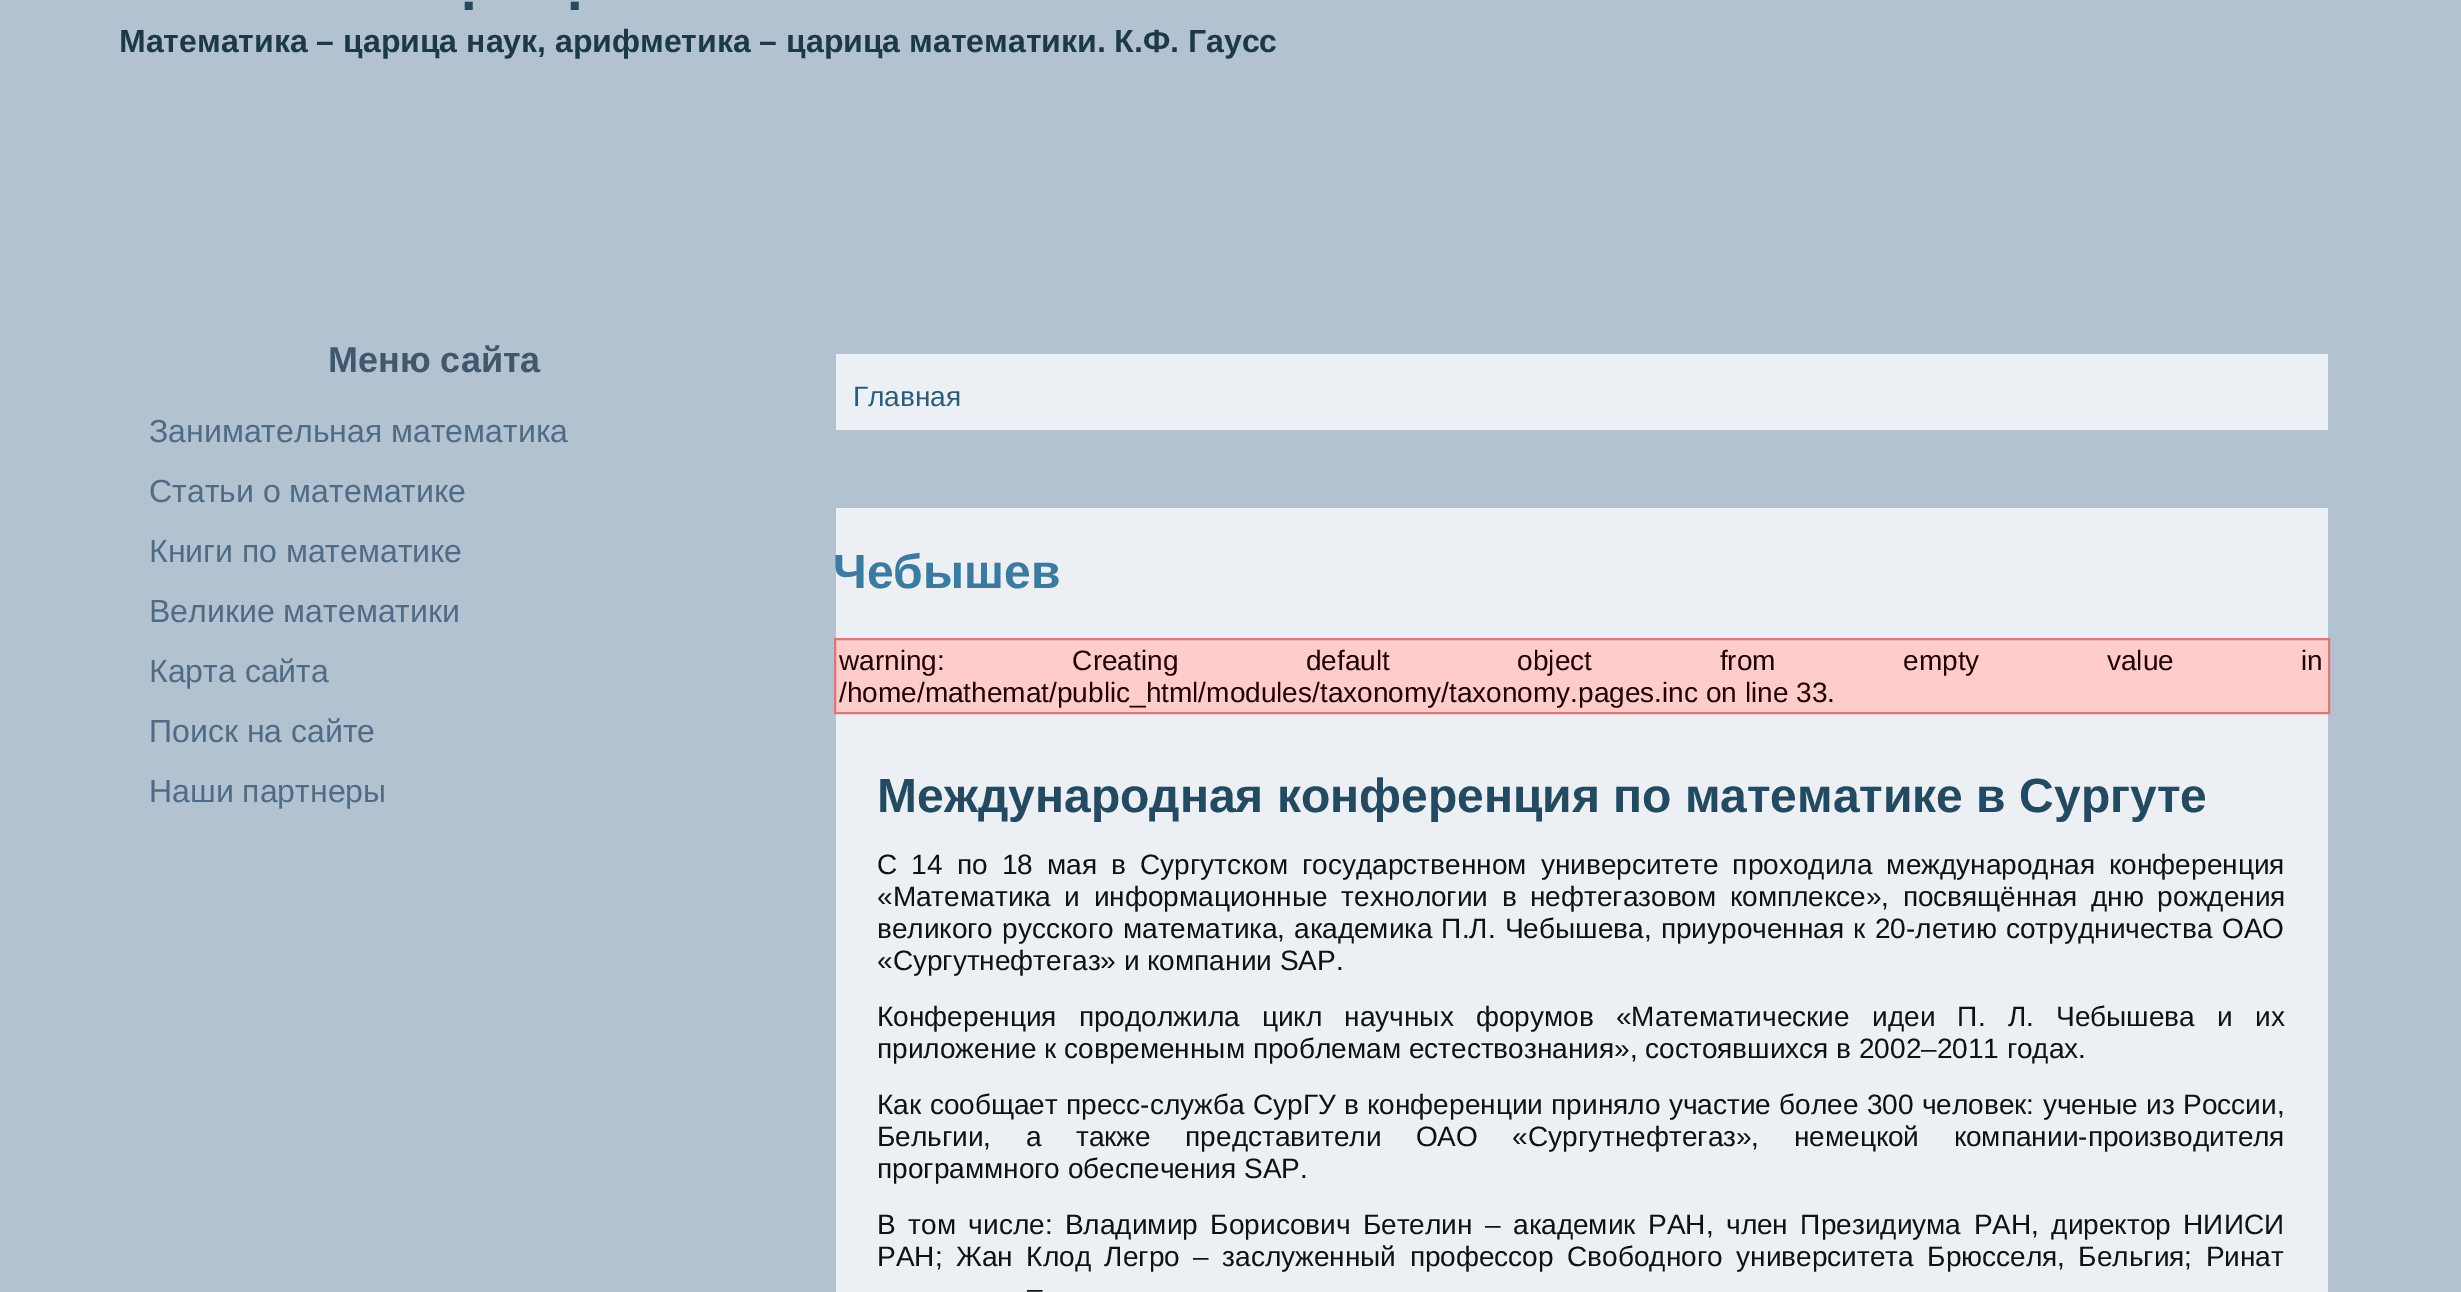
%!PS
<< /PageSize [2461 1292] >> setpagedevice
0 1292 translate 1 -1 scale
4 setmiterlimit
0.698 0.761 0.82 setrgbcolor
0 0 2461 1292 rectfill
/LiberationSans-Bold [56 0 0 -56 0 0] selectfont
0.141 0.29 0.38 setrgbcolor
461 10 moveto (.) show
567 10 moveto (.) show
/LiberationSans-Bold [32 0 0 -32 0 0] selectfont
0.11 0.224 0.29 setrgbcolor
119 52 moveto (Математика – царица наук, арифметика – царица математики. К.Ф. Гаусс) show
/LiberationSans-Bold [36 0 0 -36 0 0] selectfont
0.255 0.341 0.424 setrgbcolor
328 372 moveto (Меню сайта) show
/LiberationSans-Regular [32 0 0 -32 0 0] selectfont
0.314 0.42 0.525 setrgbcolor
149 442 moveto (Занимательная математика) show
149 502 moveto (Статьи о математике) show
149 562 moveto (Книги по математике) show
149 622 moveto (Великие математики) show
149 682 moveto (Карта сайта) show
149 742 moveto (Поиск на сайте) show
149 802 moveto (Наши партнеры) show
0.925 0.941 0.957 setrgbcolor
836 354 1492 76 rectfill
/LiberationSans-Regular [28 0 0 -28 0 0] selectfont
0.173 0.361 0.467 setrgbcolor
853 406 moveto (Главная) show
0.925 0.941 0.957 setrgbcolor
836 508 1492 784 rectfill
/LiberationSans-Bold [48 0 0 -48 0 0] selectfont
0.231 0.482 0.627 setrgbcolor
833 588 moveto (Чебышев) show
1 0.8 0.8 setrgbcolor
newpath 835 639 moveto 2329 639 lineto 2329 713 lineto 835 713 lineto closepath gsave fill grestore
0.867 0.467 0.467 setrgbcolor
2 setlinewidth
stroke
/LiberationSans-Regular [28 0 0 -28 0 0] selectfont
0.133 0 0 setrgbcolor
839 670 moveto 119.75 0 32 (warning: Creating default object from empty value in) widthshow
839 702 moveto (/home/mathemat/public_html/modules/taxonomy/taxonomy.pages.inc on line 33.) show
/LiberationSans-Bold [48 0 0 -48 0 0] selectfont
0.141 0.29 0.38 setrgbcolor
877 812 moveto (Международная конференция по математике в Сургуте) show
/LiberationSans-Regular [28 0 0 -28 0 0] selectfont
0.051 0.071 0.086 setrgbcolor
877 874 moveto 6.4 0 32 (C 14 по 18 мая в Сургутском государственном университете проходила международная конференция) widthshow
877 906 moveto 5.75 0 32 («Математика и информационные технологии в нефтегазовом комплексе», посвящённая дню рождения) widthshow
877 938 moveto 1.5 0 32 (великого русского математика, академика П.Л. Чебышева, приуроченная к 20-летию сотрудничества ОАО) widthshow
877 970 moveto («Сургутнефтегаз» и компании SAP.) show
877 1026 moveto 14.5 0 32 (Конференция продолжила цикл научных форумов «Математические идеи П. Л. Чебышева и их) widthshow
877 1058 moveto (приложение к современным проблемам естествознания», состоявшихся в 2002–2011 годах.) show
877 1114 moveto 0.6 0 32 (Как сообщает пресс-служба СурГУ в конференции приняло участие более 300 человек: ученые из России,) widthshow
877 1146 moveto 26.75 0 32 (Бельгии, а также представители ОАО «Сургутнефтегаз», немецкой компании-производителя) widthshow
877 1178 moveto (программного обеспечения SAP.) show
877 1234 moveto 4.75 0 32 (В том числе: Владимир Борисович Бетелин – академик РАН, член Президиума РАН, директор НИИСИ) widthshow
877 1266 moveto 5.75 0 32 (РАН; Жан Клод Легро – заслуженный профессор Свободного университета Брюсселя, Бельгия; Ринат) widthshow
1027 1298 moveto 15 0 32 (–) widthshow
showpage
